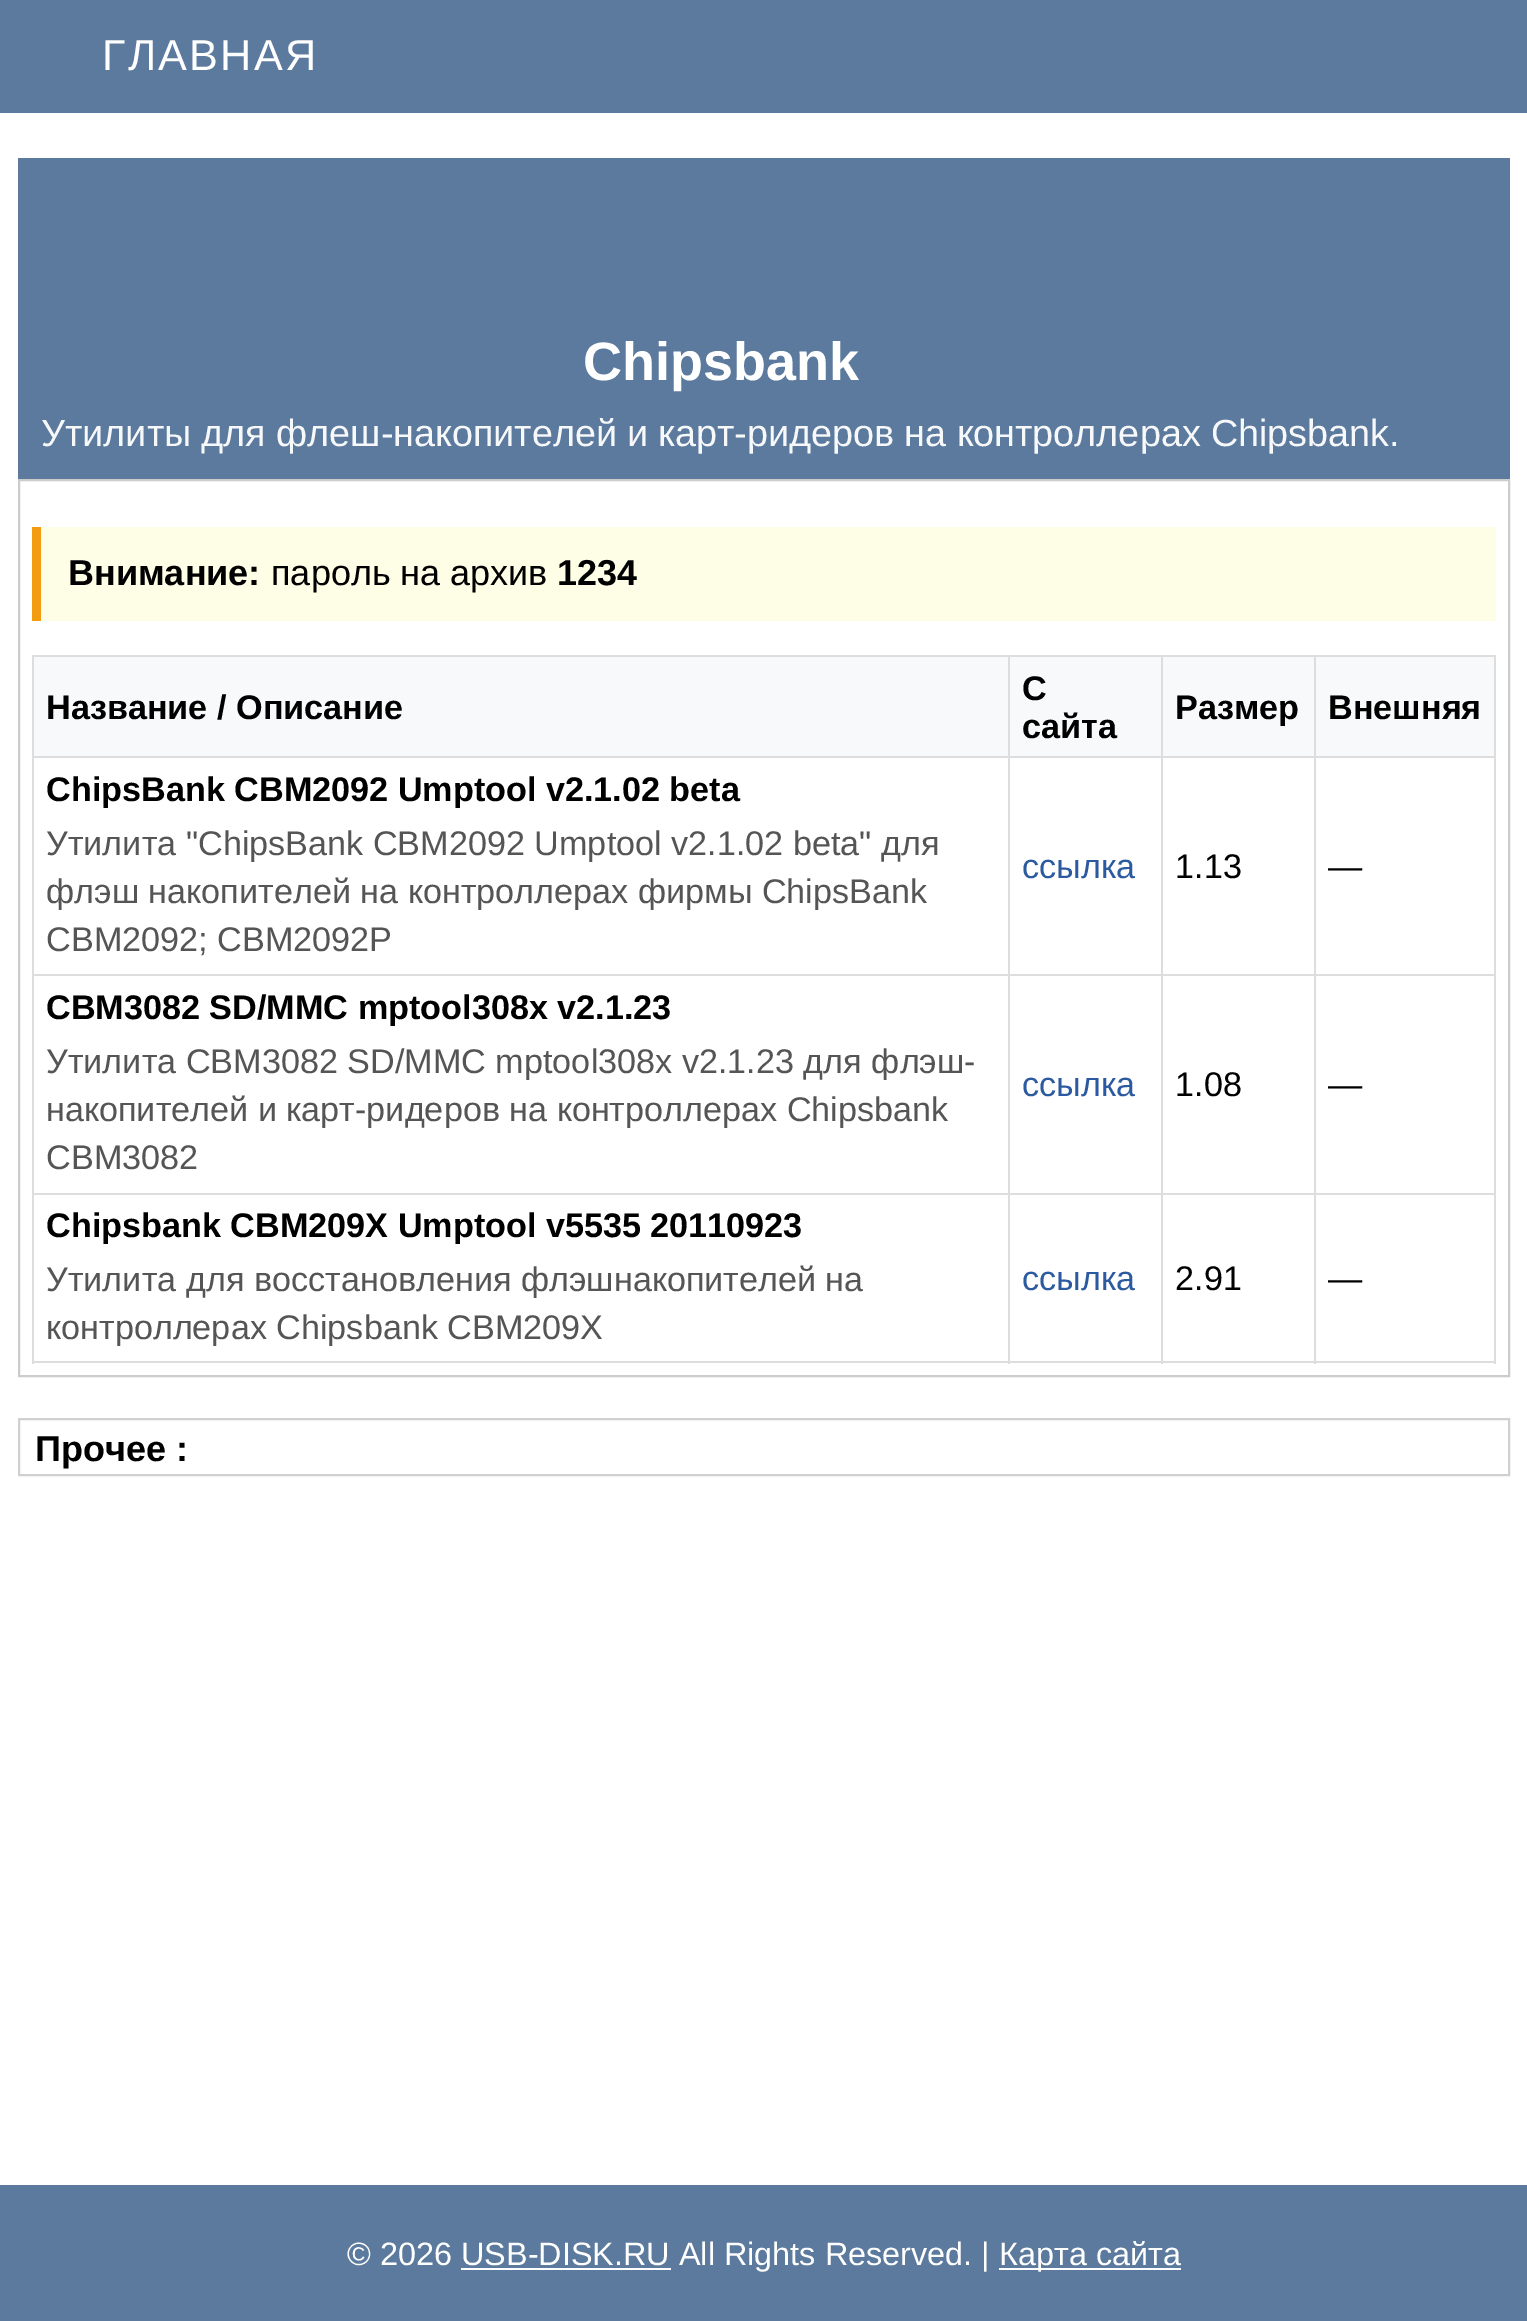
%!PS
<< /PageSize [1527 2321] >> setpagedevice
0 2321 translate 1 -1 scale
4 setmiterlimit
1 setgray
0 0 1527 2321 rectfill
0.357 0.478 0.62 setrgbcolor
0 0 1527 113 rectfill
/LiberationSans-Regular [43.25 0 0 -43.25 0 0] selectfont
1 setgray
102 70 moveto 2.25 0 (ГЛАВНАЯ) ashow
0.357 0.478 0.62 setrgbcolor
18 158 1492 321 rectfill
/LiberationSans-Bold [54 0 0 -54 0 0] selectfont
1 setgray
583 380 moveto (Chipsbank) show
/LiberationSans-Regular [37.8 0 0 -37.8 0 0] selectfont
0.969 0.973 0.98 setrgbcolor
41 446 moveto -0.25 0 32 (Утилиты для флеш-накопителей и карт-ридеров на контроллерах Chipsbank.) widthshow
0.8 setgray
2 setlinewidth
19 480 1490 896 rectstroke
0.996 0.992 0.902 setrgbcolor
41 527 1455 94 rectfill
0.953 0.612 0.071 setrgbcolor
32 527 9 94 rectfill
/LiberationSans-Bold [36 0 0 -36 0 0] selectfont
0 setgray
68 585 moveto (Внимание:) show
/LiberationSans-Regular [36 0 0 -36 0 0] selectfont
271 585 moveto (пароль на архив) show
/LiberationSans-Bold [36 0 0 -36 0 0] selectfont
557 585 moveto (1234) show
0.973 0.976 0.98 setrgbcolor
34 657 974 99 rectfill
0.867 setgray
1314 655 182 2 rectfill
1314 756 182 2 rectfill
1314 974 182 2 rectfill
1314 1193 182 2 rectfill
1494 1193 2 171 rectfill
1314 1361 182 2 rectfill
1314 1193 2 171 rectfill
1161 1193 155 2 rectfill
1314 974 2 221 rectfill
1161 974 155 2 rectfill
1314 756 2 221 rectfill
1161 756 155 2 rectfill
1314 655 2 103 rectfill
1161 655 155 2 rectfill
1161 1361 155 2 rectfill
1161 1193 2 171 rectfill
1008 1193 155 2 rectfill
1161 974 2 221 rectfill
1008 974 155 2 rectfill
1161 756 2 221 rectfill
1008 756 155 2 rectfill
1161 655 2 103 rectfill
1008 655 155 2 rectfill
1008 1361 155 2 rectfill
1008 1193 2 171 rectfill
32 1193 978 2 rectfill
1008 974 2 221 rectfill
32 974 978 2 rectfill
1008 756 2 221 rectfill
32 756 978 2 rectfill
1008 655 2 103 rectfill
32 655 978 2 rectfill
32 1361 978 2 rectfill
32 1193 2 171 rectfill
32 974 2 221 rectfill
32 756 2 221 rectfill
32 655 2 103 rectfill
/LiberationSans-Bold [34.2 0 0 -34.2 0 0] selectfont
0 setgray
46 719 moveto (Название / Описание) show
0.973 0.976 0.98 setrgbcolor
1010 657 151 99 rectfill
0 setgray
1022 700 moveto (С) show
1022 738 moveto (сайта) show
0.973 0.976 0.98 setrgbcolor
1163 657 151 99 rectfill
0 setgray
1175 719 moveto (Размер) show
0.973 0.976 0.98 setrgbcolor
1316 657 178 99 rectfill
0.867 setgray
1494 974 2 221 rectfill
1494 756 2 221 rectfill
1494 655 2 103 rectfill
0 setgray
1328 719 moveto (Внешняя) show
46 801 moveto (ChipsBank CBM2092 Umptool v2.1.02 beta) show
/LiberationSans-Regular [34.2 0 0 -34.2 0 0] selectfont
0.333 setgray
46 855 moveto (Утилита "ChipsBank CBM2092 Umptool v2.1.02 beta" для) show
46 903 moveto (флэш накопителей на контроллерах фирмы ChipsBank) show
46 951 moveto (CBM2092; CBM2092P) show
0.173 0.353 0.627 setrgbcolor
1022 878 moveto (ссылка) show
0 setgray
1175 878 moveto (1.13) show
1328 878 moveto (—) show
/LiberationSans-Bold [34.2 0 0 -34.2 0 0] selectfont
46 1019 moveto (CBM3082 SD/MMC mptool308x v2.1.23) show
/LiberationSans-Regular [34.2 0 0 -34.2 0 0] selectfont
0.333 setgray
46 1073 moveto (Утилита CBM3082 SD/MMC mptool308x v2.1.23 для флэш-) show
46 1121 moveto (накопителей и карт-ридеров на контроллерах Chipsbank) show
46 1169 moveto (CBM3082) show
0.173 0.353 0.627 setrgbcolor
1022 1096 moveto (ссылка) show
0 setgray
1175 1096 moveto (1.08) show
1328 1096 moveto (—) show
/LiberationSans-Bold [34.2 0 0 -34.2 0 0] selectfont
46 1237 moveto (Chipsbank CBM209X Umptool v5535 20110923) show
/LiberationSans-Regular [34.2 0 0 -34.2 0 0] selectfont
0.333 setgray
46 1291 moveto (Утилита для восстановления флэшнакопителей на) show
46 1339 moveto (контроллерах Chipsbank CBM209X) show
0.173 0.353 0.627 setrgbcolor
1022 1290 moveto (ссылка) show
0 setgray
1175 1290 moveto (2.91) show
1328 1290 moveto (—) show
0.816 setgray
19 1419 1490 56 rectstroke
/LiberationSans-Bold [36 0 0 -36 0 0] selectfont
0 setgray
35 1461 moveto (Прочее :) show
0.357 0.478 0.62 setrgbcolor
0 2185 1527 136 rectfill
/LiberationSans-Regular [32.4 0 0 -32.4 0 0] selectfont
1 setgray
347 2265 moveto (© 2026 USB-DISK.RU All Rights Reserved. |) show
999 2268 182 2 rectfill
999 2265 moveto (Карта сайта) show
461 2268 210 2 rectfill
showpage
